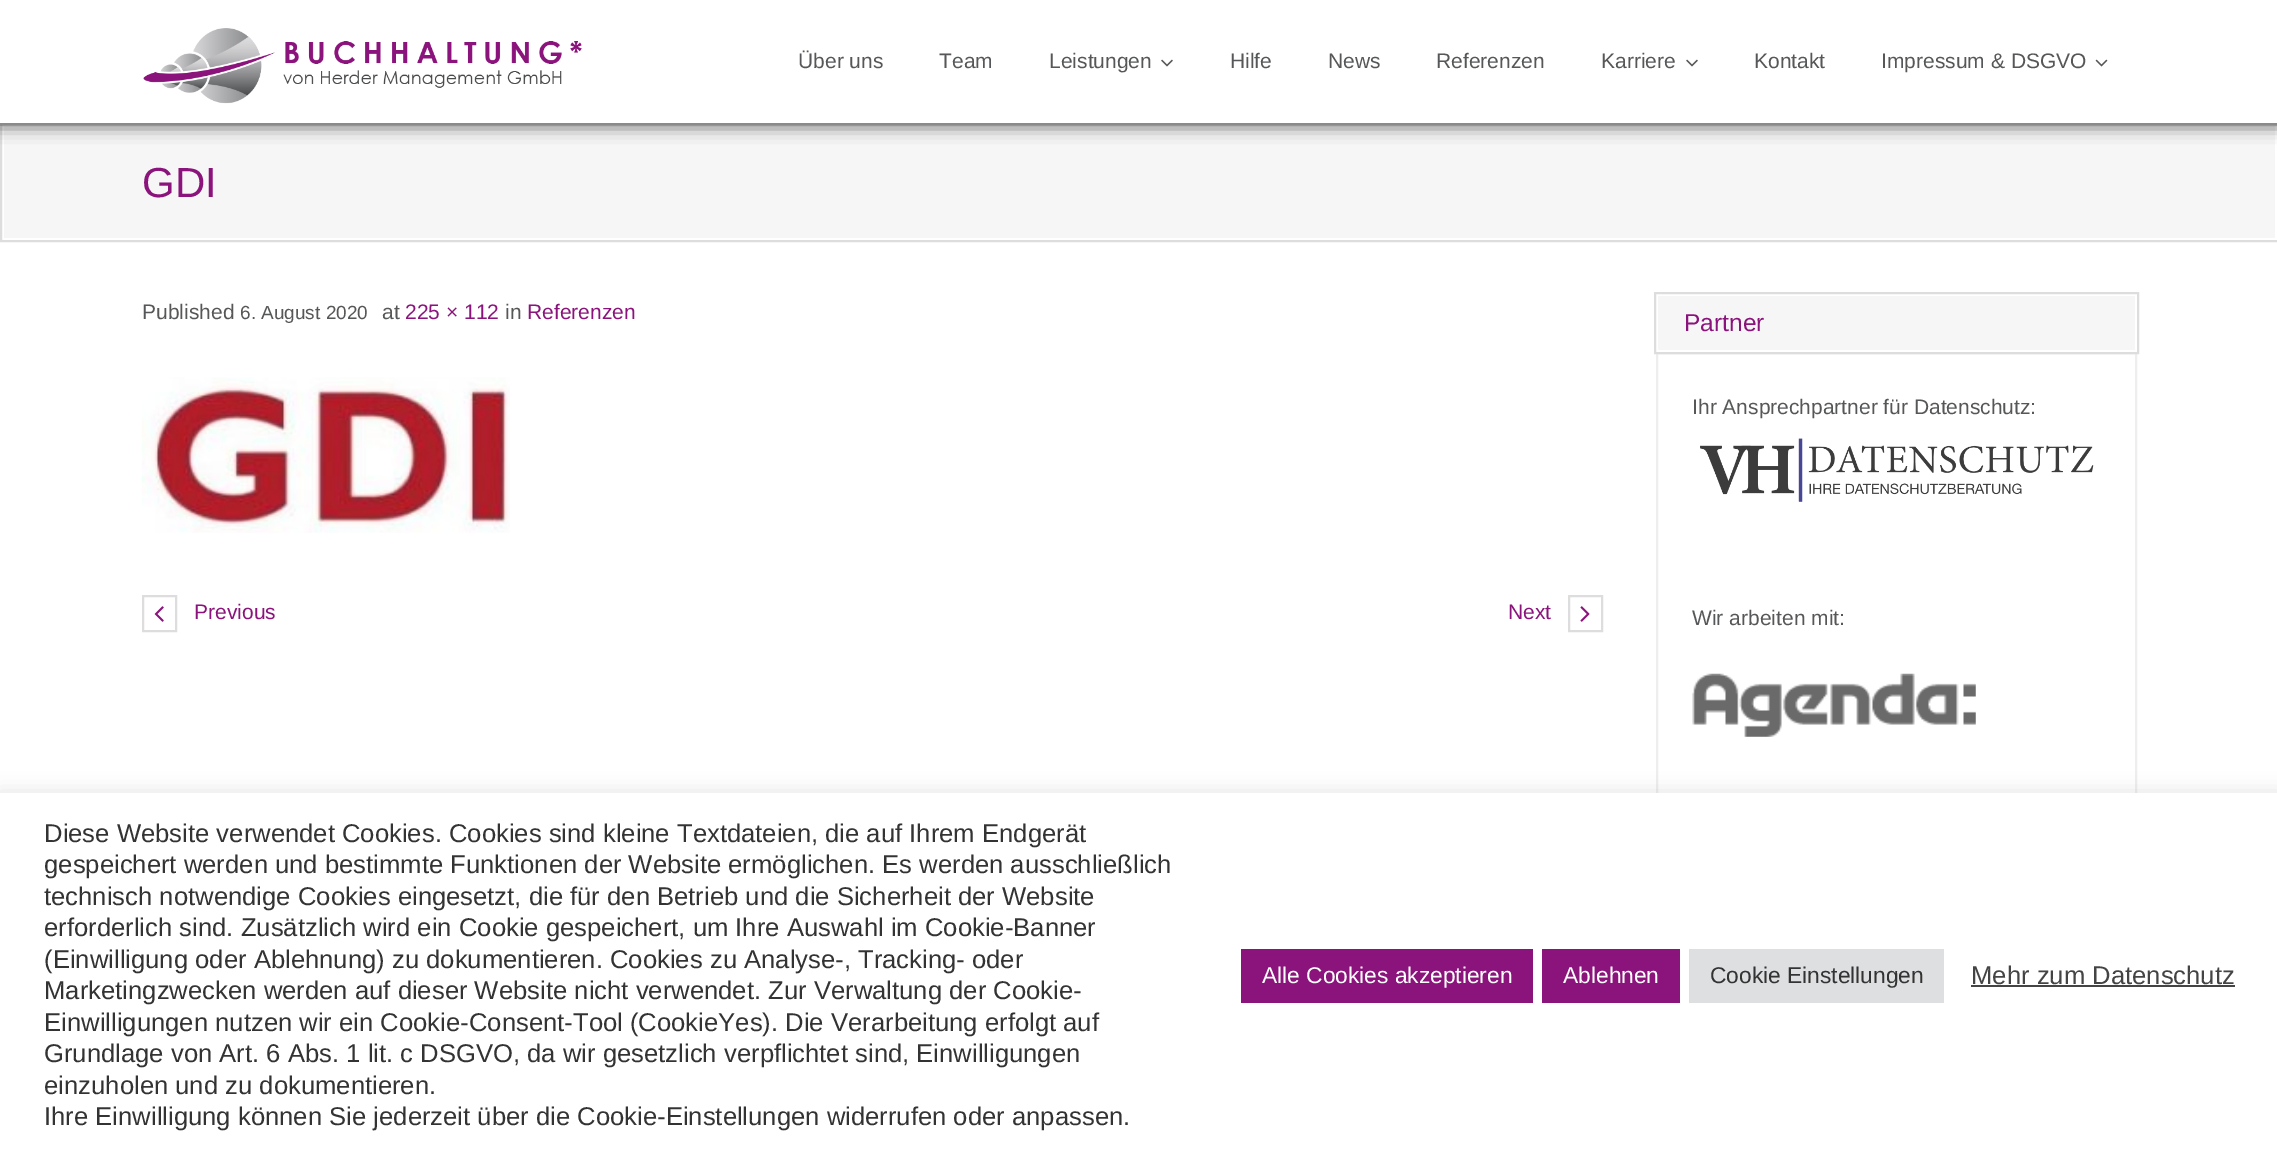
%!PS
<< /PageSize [2277 1156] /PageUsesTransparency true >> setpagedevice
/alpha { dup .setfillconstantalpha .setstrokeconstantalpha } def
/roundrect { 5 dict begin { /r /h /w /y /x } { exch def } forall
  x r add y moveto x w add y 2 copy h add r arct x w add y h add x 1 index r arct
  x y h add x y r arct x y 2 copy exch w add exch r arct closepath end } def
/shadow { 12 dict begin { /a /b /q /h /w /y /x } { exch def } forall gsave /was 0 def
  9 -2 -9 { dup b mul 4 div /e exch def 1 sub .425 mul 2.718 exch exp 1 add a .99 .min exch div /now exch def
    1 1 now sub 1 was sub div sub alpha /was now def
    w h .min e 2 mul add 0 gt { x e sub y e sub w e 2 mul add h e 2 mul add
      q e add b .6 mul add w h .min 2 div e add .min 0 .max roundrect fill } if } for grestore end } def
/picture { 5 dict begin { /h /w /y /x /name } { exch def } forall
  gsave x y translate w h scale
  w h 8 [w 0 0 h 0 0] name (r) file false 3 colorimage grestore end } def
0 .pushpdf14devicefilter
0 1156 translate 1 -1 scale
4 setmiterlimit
1 setgray
0 0 2277 1156 rectfill
0.965 setgray
4 126 2271 112 rectfill
0.867 setgray
2 setlinewidth
1 124 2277 117 rectstroke
0.2 setgray
-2 -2 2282 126 0 9 1 shadow
1 setgray
0 0 2277 123 rectfill
(img1.rgb) 143 28 439 76 picture
/LiberationSans-Regular [21 0 0 -21 0 0] selectfont
0.337 0.341 0.345 setrgbcolor
798 68 moveto (Über uns) show
939 68 moveto (Team) show
1049 68 moveto (Leistungen) show
(img2.rgb) 1161 59 12 8 picture
1230 68 moveto (Hilfe) show
1328 68 moveto (News) show
1436 68 moveto (Referenzen) show
1601 68 moveto (Karriere) show
(img2.rgb) 1686 59 12 8 picture
1754 68 moveto (Kontakt) show
1881 68 moveto (Impressum & DSGVO) show
(img3.rgb) 2095 59 13 8 picture
/LiberationSans-Regular [42 0 0 -42 0 0] selectfont
0.545 0.075 0.486 setrgbcolor
142 197 moveto (GDI) show
/LiberationSans-Regular [21 0 0 -21 0 0] selectfont
0.337 0.341 0.345 setrgbcolor
142 319 moveto (Published) show
/LiberationSans-Regular [19 0 0 -19 0 0] selectfont
240 319 moveto (6. August 2020) show
/LiberationSans-Regular [21 0 0 -21 0 0] selectfont
382 319 moveto (at) show
0.545 0.075 0.486 setrgbcolor
405 319 moveto (225 × 112) show
0.337 0.341 0.345 setrgbcolor
505 319 moveto (in) show
0.545 0.075 0.486 setrgbcolor
527 319 moveto (Referenzen) show
(img4.rgb) 141 377 369 156 picture
0.867 setgray
143 596 33 35 rectstroke
(img5.rgb) 154 606 10 16 picture
0.545 0.075 0.486 setrgbcolor
194 619 moveto (Previous) show
1508 619 moveto (Next) show
0.867 setgray
1569 596 33 35 rectstroke
(img6.rgb) 1580 606 10 16 picture
0.933 setgray
1657 353 479 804 rectstroke
0.867 setgray
1655 293 483 60 rectstroke
0.965 setgray
1658 296 477 54 rectfill
/LiberationSans-Regular [24.5 0 0 -24.5 0 0] selectfont
0.545 0.075 0.486 setrgbcolor
1684 331 moveto (Partner) show
/LiberationSans-Regular [21 0 0 -21 0 0] selectfont
0.337 0.341 0.345 setrgbcolor
1692 414 moveto (Ihr Ansprechpartner für Datenschutz:) show
(img7.rgb) 1700 438 394 64 picture
1692 625 moveto (Wir arbeiten mit:) show
(img8.rgb) 1692 673 284 64 picture
0.675 0.671 0.671 setrgbcolor
0 791 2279 364 0 9 0.3 shadow
1 setgray
0 793 2277 363 rectfill
/LiberationSans-Regular [25.65 0 0 -25.65 0 0] selectfont
0.2 setgray
44 842 moveto (Diese Website verwendet Cookies. Cookies sind kleine Textdateien, die auf Ihrem Endgerät) show
44 873 moveto (gespeichert werden und bestimmte Funktionen der Website ermöglichen. Es werden ausschließlich) show
44 905 moveto (technisch notwendige Cookies eingesetzt, die für den Betrieb und die Sicherheit der Website) show
44 936 moveto (erforderlich sind. Zusätzlich wird ein Cookie gespeichert, um Ihre Auswahl im Cookie-Banner) show
44 968 moveto (\(Einwilligung oder Ablehnung\) zu dokumentieren. Cookies zu Analyse-, Tracking- oder) show
44 999 moveto (Marketingzwecken werden auf dieser Website nicht verwendet. Zur Verwaltung der Cookie-) show
44 1031 moveto (Einwilligungen nutzen wir ein Cookie-Consent-Tool \(CookieYes\). Die Verarbeitung erfolgt auf) show
44 1062 moveto (Grundlage von Art. 6 Abs. 1 lit. c DSGVO, da wir gesetzlich verpflichtet sind, Einwilligungen) show
44 1094 moveto (einzuholen und zu dokumentieren.) show
44 1125 moveto (Ihre Einwilligung können Sie jederzeit über die Cookie-Einstellungen widerrufen oder anpassen.) show
0.545 0.075 0.486 setrgbcolor
1241 949 292 54 rectfill
/LiberationSans-Regular [22.75 0 0 -22.75 0 0] selectfont
1 setgray
1262 983 moveto (Alle Cookies akzeptieren) show
0.545 0.075 0.486 setrgbcolor
1542 949 138 54 rectfill
1 setgray
1563 983 moveto (Ablehnen) show
0.871 0.875 0.878 setrgbcolor
1689 949 255 54 rectfill
0.2 setgray
1710 983 moveto (Cookie Einstellungen) show
/LiberationSans-Regular [25.65 0 0 -25.65 0 0] selectfont
0.267 setgray
1971 984 moveto (Mehr zum Datenschutz) show
1971 985 264 2 rectfill
.poppdf14devicefilter showpage
